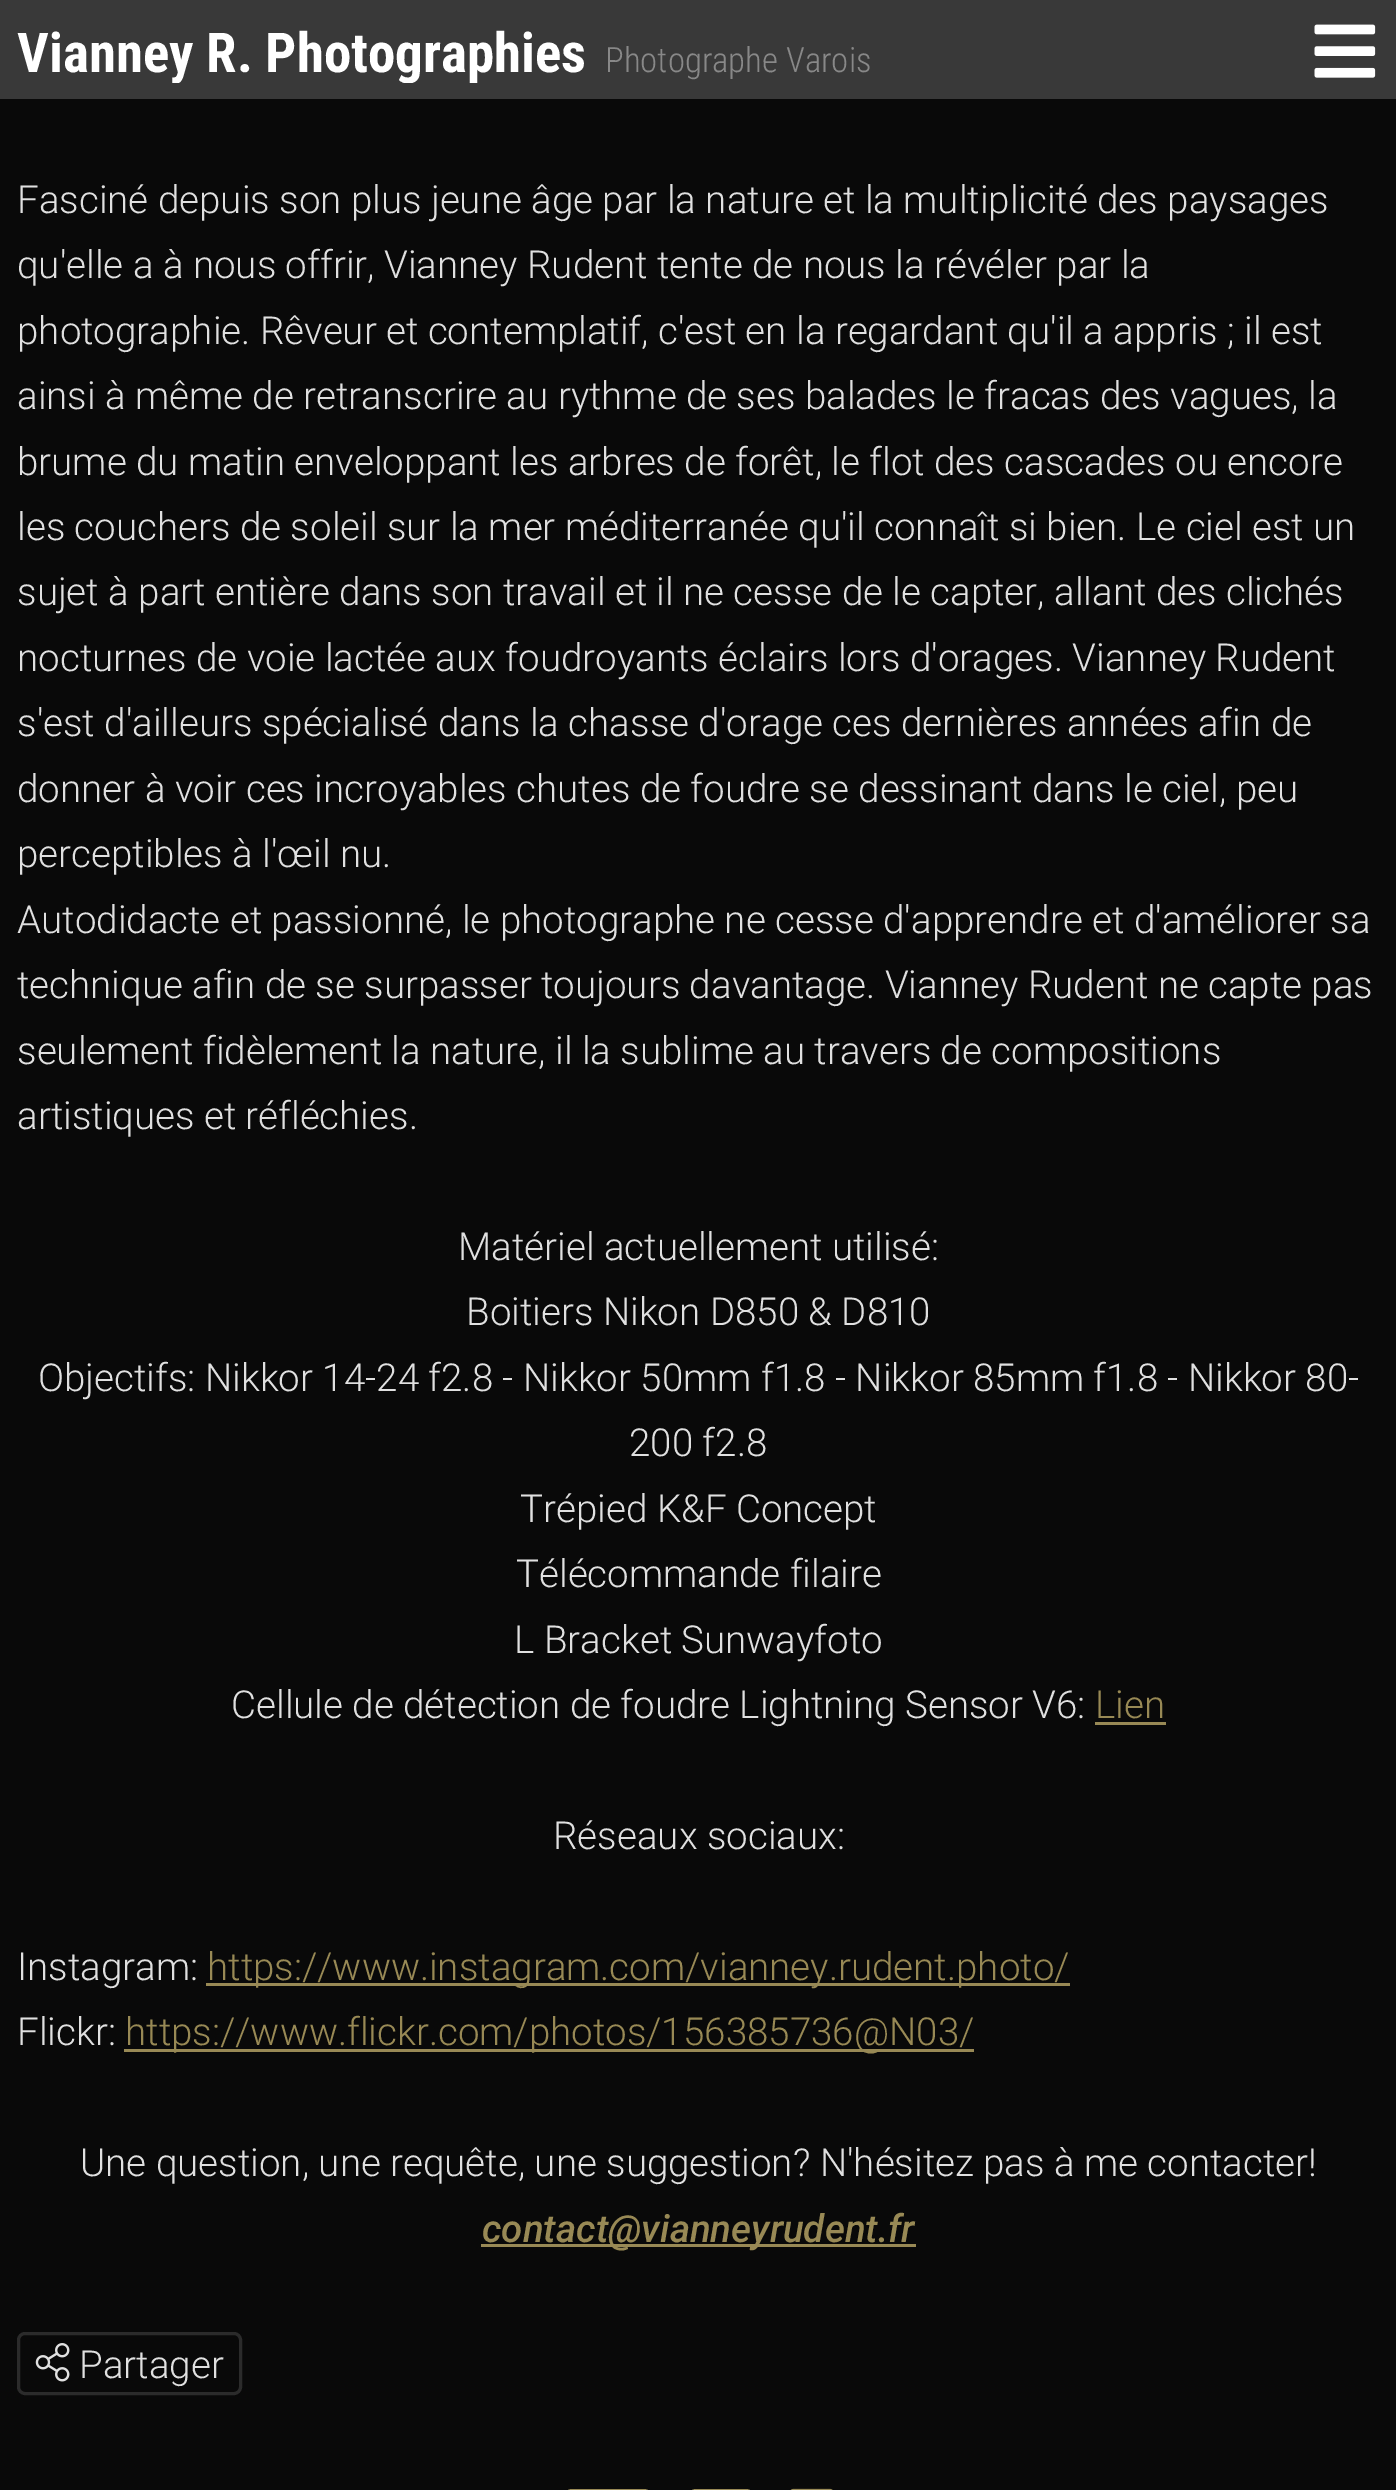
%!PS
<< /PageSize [1396 2490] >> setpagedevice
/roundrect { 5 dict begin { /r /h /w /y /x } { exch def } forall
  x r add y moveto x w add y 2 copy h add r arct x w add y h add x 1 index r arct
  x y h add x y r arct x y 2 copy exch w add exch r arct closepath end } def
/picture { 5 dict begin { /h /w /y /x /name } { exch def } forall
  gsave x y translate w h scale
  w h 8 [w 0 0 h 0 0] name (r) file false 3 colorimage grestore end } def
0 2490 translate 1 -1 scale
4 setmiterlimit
0.035 setgray
0 0 1396 2490 rectfill
0.224 setgray
0 0 1396 99 rectfill
gsave
0 17 1293 66 rectclip
/RobotoCondensed-Bold [55 0 0 -55 0 0] selectfont
1 setgray
17 72 moveto (Vianney R. Photographies) show
grestore
/RobotoCondensed-Light [34.75 0 0 -34.75 0 0] selectfont
0.533 setgray
605 72 moveto (Photographe Varois) show
(img1.rgb) 1314 24 62 54 picture
/Roboto-Light [38.5 0 0 -38.5 0 0] selectfont
0.878 setgray
17 213 moveto (Fasciné depuis son plus jeune âge par la nature et la multiplicité des paysages) show
17 278 moveto (qu'elle a à nous offrir, Vianney Rudent tente de nous la révéler par la) show
17 344 moveto (photographie. Rêveur et contemplatif, c'est en la regardant qu'il a appris ; il est) show
17 409 moveto (ainsi à même de retranscrire au rythme de ses balades le fracas des vagues, la) show
17 475 moveto (brume du matin enveloppant les arbres de forêt, le flot des cascades ou encore) show
17 540 moveto (les couchers de soleil sur la mer méditerranée qu'il connaît si bien. Le ciel est un) show
17 605 moveto (sujet à part entière dans son travail et il ne cesse de le capter, allant des clichés) show
17 671 moveto (nocturnes de voie lactée aux foudroyants éclairs lors d'orages. Vianney Rudent) show
17 736 moveto (s'est d'ailleurs spécialisé dans la chasse d'orage ces dernières années afin de) show
17 802 moveto (donner à voir ces incroyables chutes de foudre se dessinant dans le ciel, peu) show
17 867 moveto (perceptibles à l'œil nu.) show
17 933 moveto (Autodidacte et passionné, le photographe ne cesse d'apprendre et d'améliorer sa) show
17 998 moveto (technique afin de se surpasser toujours davantage. Vianney Rudent ne capte pas) show
17 1064 moveto (seulement fidèlement la nature, il la sublime au travers de compositions) show
17 1129 moveto (artistiques et réfléchies.) show
458 1260 moveto (Matériel actuellement utilisé:) show
466 1325 moveto (Boitiers Nikon D850 & D810) show
38 1391 moveto (Objectifs: Nikkor 14-24 f2.8 - Nikkor 50mm f1.8 - Nikkor 85mm f1.8 - Nikkor 80-) show
629 1456 moveto (200 f2.8) show
520 1522 moveto (Trépied K&F Concept) show
516 1587 moveto (Télécommande filaire) show
514 1653 moveto (L Bracket Sunwayfoto) show
231 1718 moveto (Cellule de détection de foudre Lightning Sensor V6:) show
0.596 0.537 0.333 setrgbcolor
1095 1718 moveto (Lien) show
1095 1722 71 3 rectfill
0.878 setgray
553 1849 moveto (Réseaux sociaux:) show
17 1980 moveto (Instagram:) show
0.596 0.537 0.333 setrgbcolor
206 1983 864 3 rectfill
207 1980 moveto (https://www.instagram.com/vianney.rudent.photo/) show
0.878 setgray
17 2045 moveto (Flickr:) show
0.596 0.537 0.333 setrgbcolor
124 2049 850 3 rectfill
125 2045 moveto (https://www.flickr.com/photos/156385736@N03/) show
0.878 setgray
80 2176 moveto (Une question, une requête, une suggestion? N'hésitez pas à me contacter!) show
0.596 0.537 0.333 setrgbcolor
481 2244 435 3 rectfill
/Roboto-MediumItalic [38.5 0 0 -38.5 0 0] selectfont
482 2242 moveto (contact@vianneyrudent.fr) show
0.169 setgray
3 setlinewidth
18.5 2333.5 222 60 6.5 roundrect stroke
(img2.rgb) 35 2343 35 39 picture
/Roboto-Light [38.5 0 0 -38.5 0 0] selectfont
0.878 setgray
79 2378 moveto (Partager) show
0.596 0.537 0.333 setrgbcolor
564 2489 88 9 8 roundrect fill
688 2489 66 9 8 roundrect fill
(img3.rgb) 790 2488 43 2 picture
showpage
